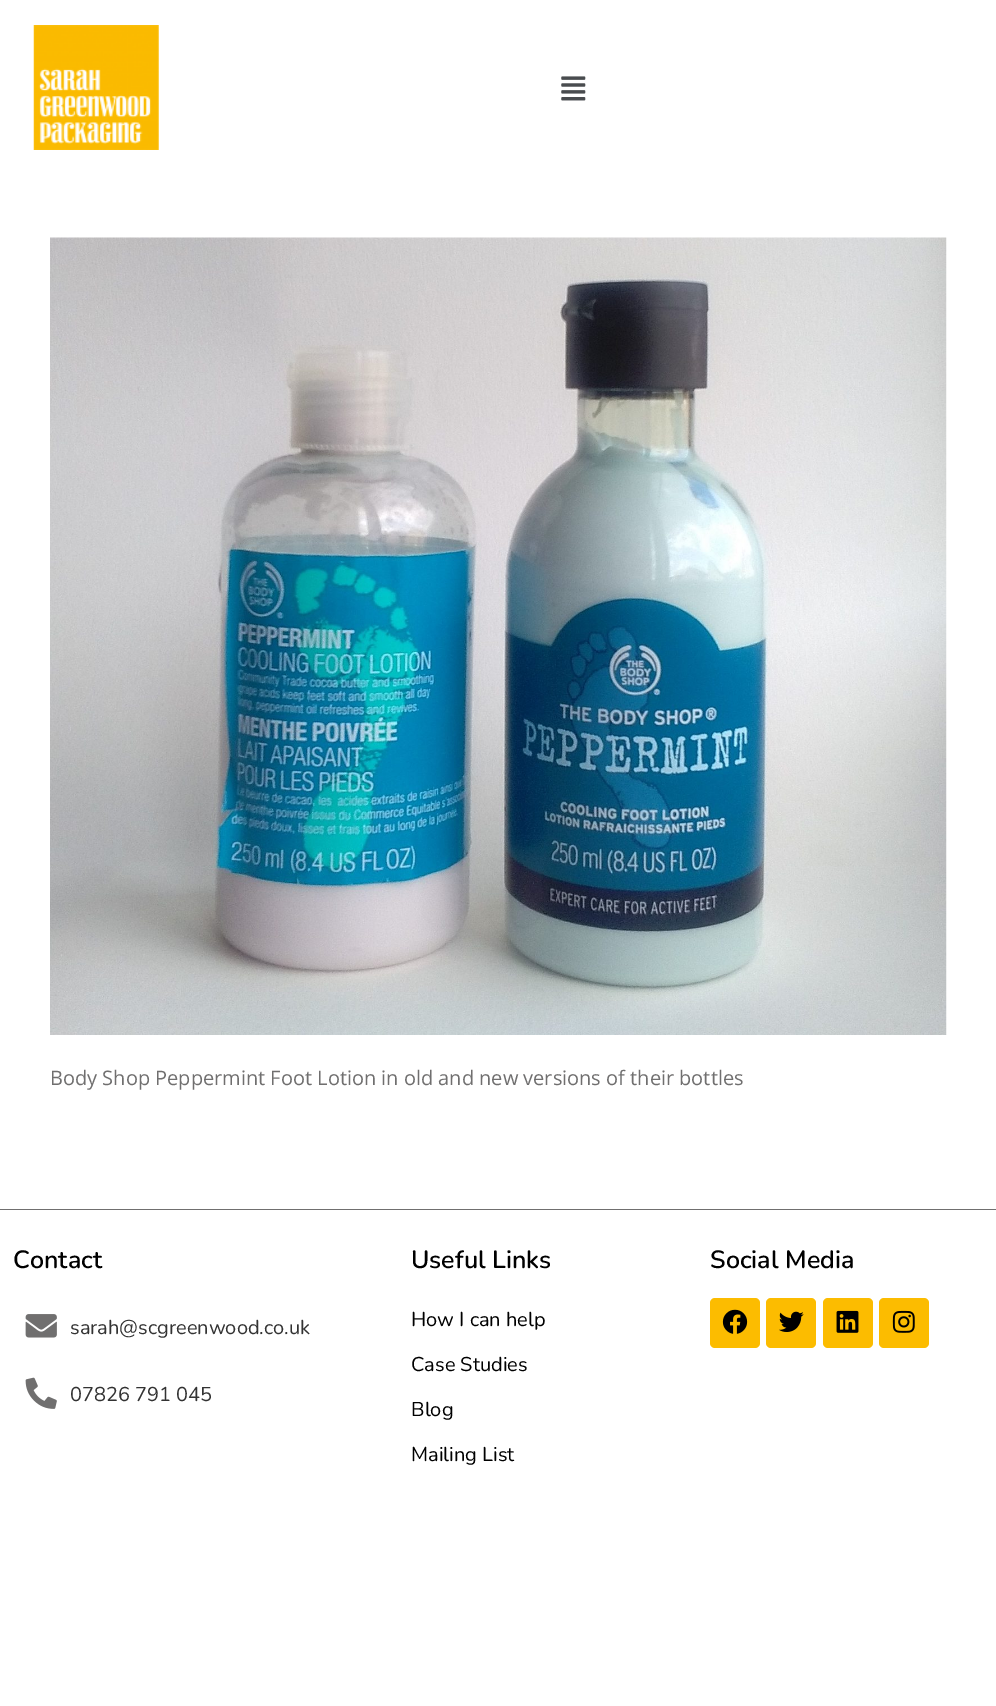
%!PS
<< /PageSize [996 1706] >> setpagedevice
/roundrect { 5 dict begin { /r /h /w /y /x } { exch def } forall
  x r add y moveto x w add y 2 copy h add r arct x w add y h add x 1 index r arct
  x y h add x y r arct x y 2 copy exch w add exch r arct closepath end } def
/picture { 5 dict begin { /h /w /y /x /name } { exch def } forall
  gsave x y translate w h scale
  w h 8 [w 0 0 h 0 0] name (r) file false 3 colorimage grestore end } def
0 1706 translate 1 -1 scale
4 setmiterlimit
1 setgray
0 0 996 1706 rectfill
(img1.rgb) 33 25 126 125 picture
(img2.rgb) 561 76 25 25 picture
(img3.rgb) 50 237 897 798 picture
/OpenSans-Regular [20 0 0 -20 0 0] selectfont
0.439 0.435 0.435 setrgbcolor
50 1085 moveto (Body Shop Peppermint Foot Lotion in old and new versions of their bottles) show
0 1209 996 1 rectfill
/Nunito-SemiBold [25 0 0 -25 0 0] selectfont
0 setgray
13 1268 moveto (Contact) show
(img4.rgb) 25 1314 32 24 picture
/Nunito-Regular [20 0 0 -20 0 0] selectfont
0.2 setgray
70 1334 moveto (sarah@scgreenwood.co.uk) show
(img5.rgb) 25 1377 32 32 picture
70 1401 moveto (07826 791 045) show
/Nunito-SemiBold [25 0 0 -25 0 0] selectfont
0 setgray
411 1268 moveto (Useful Links) show
/Nunito-Regular [20 0 0 -20 0 0] selectfont
411 1326 moveto (How I can help) show
411 1371 moveto (Case Studies) show
411 1416 moveto (Blog) show
411 1461 moveto (Mailing List) show
/Nunito-SemiBold [25 0 0 -25 0 0] selectfont
710 1268 moveto (Social Media) show
0.988 0.737 0 setrgbcolor
710 1298 50 50 5 roundrect fill
(img6.rgb) 722 1309 26 25 picture
766 1298 50 50 5 roundrect fill
(img7.rgb) 779 1311 25 21 picture
823 1298 50 50 5 roundrect fill
(img8.rgb) 836 1310 23 23 picture
879 1298 50 50 5 roundrect fill
(img9.rgb) 892 1310 23 23 picture
showpage
